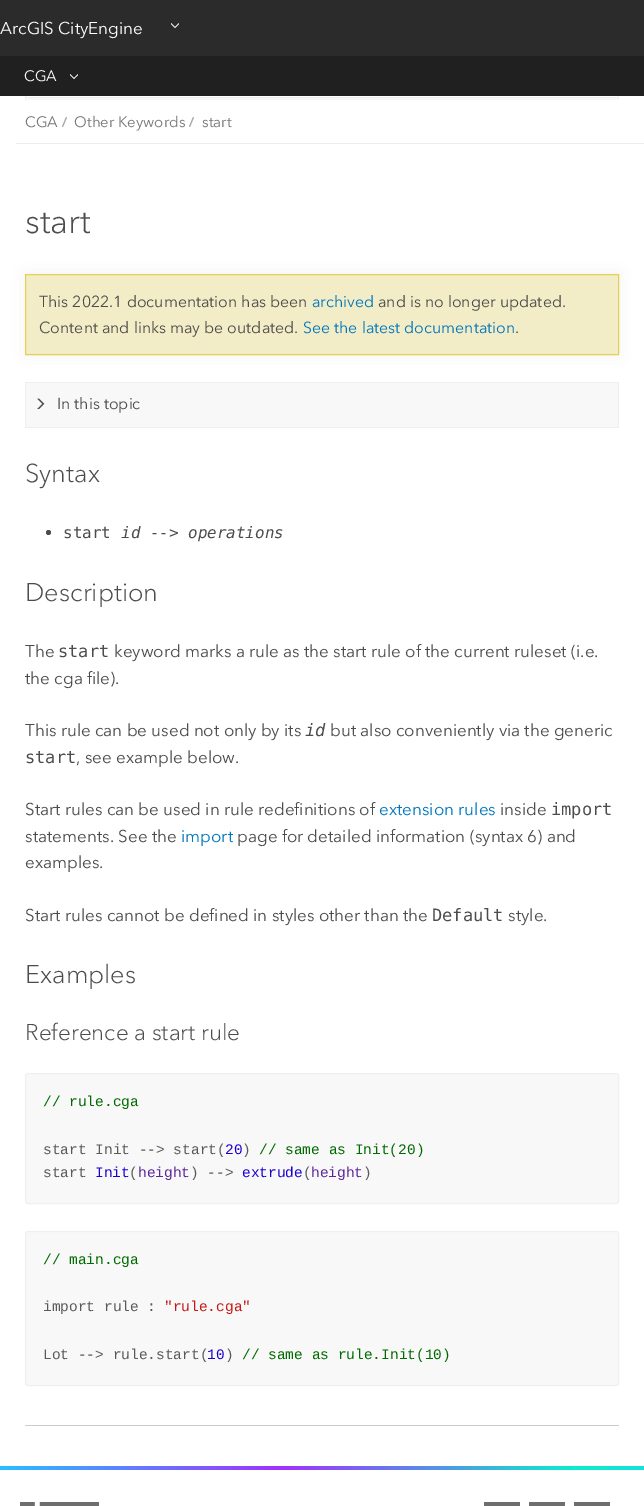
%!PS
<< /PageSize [644 1506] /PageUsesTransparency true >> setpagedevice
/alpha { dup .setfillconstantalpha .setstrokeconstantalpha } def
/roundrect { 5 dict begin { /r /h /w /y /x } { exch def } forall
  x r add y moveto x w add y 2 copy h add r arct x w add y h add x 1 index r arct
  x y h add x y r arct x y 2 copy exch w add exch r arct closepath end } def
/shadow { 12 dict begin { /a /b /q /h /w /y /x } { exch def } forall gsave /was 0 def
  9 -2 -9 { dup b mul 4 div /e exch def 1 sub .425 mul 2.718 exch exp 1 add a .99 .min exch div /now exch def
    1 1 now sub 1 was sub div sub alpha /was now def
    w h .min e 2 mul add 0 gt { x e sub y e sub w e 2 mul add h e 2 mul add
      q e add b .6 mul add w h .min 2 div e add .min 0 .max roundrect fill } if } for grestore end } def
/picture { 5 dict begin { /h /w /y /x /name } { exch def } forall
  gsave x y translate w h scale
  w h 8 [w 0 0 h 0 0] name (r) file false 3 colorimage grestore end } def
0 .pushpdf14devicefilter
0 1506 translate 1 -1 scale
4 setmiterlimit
1 setgray
0 0 644 1506 rectfill
0.169 setgray
0 0 644 56 rectfill
/AvenirNext-Regular [17 0 0 -17 0 0] selectfont
1 setgray
0 34 moveto (ArcGIS CityEngine) show
(img1.rgb) 171 23 8 5 picture
0.125 setgray
0 56 644 40 rectfill
/AvenirNext-Regular [15 0 0 -15 0 0] selectfont
1 setgray
24 81 moveto (CGA) show
(img2.rgb) 70 74 8 5 picture
0.937 setgray
618 96 1 4 rectfill
25 96 1 4 rectfill
0.973 setgray
26 98 592 2 rectfill
0.937 setgray
26 97 592 1 rectfill
0.929 setgray
16 143 628 1 rectfill
0.459 setgray
25 127 moveto (CGA) show
0.663 setgray
newpath 63 127 moveto 62 126.5 lineto 66 117 lineto 67 117.5 lineto closepath fill
0.459 setgray
74 127 moveto (Other Keywords) show
0.663 setgray
newpath 190 127 moveto 189 126.5 lineto 193 117 lineto 194 117.5 lineto closepath fill
0.459 setgray
202 127 moveto (start) show
/AvenirNext-Light [34 0 0 -34 0 0] selectfont
0.298 setgray
25 233 moveto (start) show
0 setgray
25 274 594 81 0 8 0.05 shadow
0.953 0.929 0.78 setrgbcolor
newpath 25.5 274.5 moveto 618.5 274.5 lineto 618.5 354.5 lineto 25.5 354.5 lineto closepath gsave fill grestore
0.894 0.82 0.329 setrgbcolor
stroke
/AvenirNext-Regular [15.9 0 0 -15.9 0 0] selectfont
0.298 setgray
39 307 moveto (This 2022.1 documentation has been) show
0 0.463 0.737 setrgbcolor
312 307 moveto (archived) show
0.298 setgray
378 307 moveto (and is no longer updated.) show
39 333 moveto (Content and links may be outdated.) show
0 0.463 0.737 setrgbcolor
303 333 moveto (See the latest documentation) show
0.298 setgray
515 333 moveto (.) show
0.937 setgray
618 382 1 46 rectfill
25 427 594 1 rectfill
25 382 1 46 rectfill
0.973 setgray
26 383 592 44 rectfill
0.937 setgray
26 382 592 1 rectfill
(img3.rgb) 37 398 8 11 picture
0.298 setgray
57 409 moveto (In this topic) show
/AvenirNext-Light [25.5 0 0 -25.5 0 0] selectfont
25 482 moveto (Syntax) show
newpath 48.5 532.5 2.5 0 360 arc closepath fill
/DejaVuSansMono-Regular [15.9 0 0 -15.9 0 0] selectfont
63 538 moveto (start) show
/DejaVuSansMono-Italic [15.9 0 0 -15.9 0 0] selectfont
121 538 moveto (id --> operations) show
/AvenirNext-Light [25.5 0 0 -25.5 0 0] selectfont
25 601 moveto (Description) show
/AvenirNext-Regular [17 0 0 -17 0 0] selectfont
25 657 moveto (The) show
/DejaVuSansMono-Regular [17 0 0 -17 0 0] selectfont
58 657 moveto (start) show
/AvenirNext-Regular [17 0 0 -17 0 0] selectfont
114 657 moveto (keyword marks a rule as the start rule of the current ruleset \(i.e.) show
25 684 moveto (the cga file\).) show
25 736 moveto (This rule can be used not only by its) show
/DejaVuSansMono-Italic [17 0 0 -17 0 0] selectfont
305 736 moveto (id) show
/AvenirNext-Regular [17 0 0 -17 0 0] selectfont
330 736 moveto (but also conveniently via the generic) show
/DejaVuSansMono-Regular [17 0 0 -17 0 0] selectfont
25 763 moveto (start) show
/AvenirNext-Regular [17 0 0 -17 0 0] selectfont
76 763 moveto (, see example below.) show
25 815 moveto (Start rules can be used in rule redefinitions of) show
0 0.463 0.737 setrgbcolor
379 815 moveto (extension rules) show
0.298 setgray
500 815 moveto (inside) show
/DejaVuSansMono-Regular [17 0 0 -17 0 0] selectfont
551 815 moveto (import) show
/AvenirNext-Regular [17 0 0 -17 0 0] selectfont
25 842 moveto (statements. See the) show
0 0.463 0.737 setrgbcolor
181 842 moveto (import) show
0.298 setgray
237 842 moveto (page for detailed information \(syntax 6\) and) show
25 868 moveto (examples.) show
25 921 moveto (Start rules cannot be defined in styles other than the) show
/DejaVuSansMono-Regular [17 0 0 -17 0 0] selectfont
432 921 moveto (Default) show
/AvenirNext-Regular [17 0 0 -17 0 0] selectfont
508 921 moveto (style.) show
/AvenirNext-Light [25.5 0 0 -25.5 0 0] selectfont
25 983 moveto (Examples) show
/AvenirNext-Light [22.6 0 0 -22.6 0 0] selectfont
25 1040 moveto (Reference a start rule) show
0.973 setgray
25.5 1073.5 593 130 2.5 roundrect gsave fill grestore
0.937 setgray
stroke
/LiberationMono-Regular [14.5 0 0 -14.5 0 0] selectfont
0 0.416 0 setrgbcolor
43 1106 moveto (// rule.cga) show
0.349 setgray
43 1154 moveto (start Init --> start\() show
0.11 0 0.812 setrgbcolor
225 1154 moveto (20) show
0.349 setgray
242 1154 moveto (\)) show
0 0.416 0 setrgbcolor
259 1154 moveto (// same as Init\(20\)) show
0.349 setgray
43 1177 moveto (start) show
0.11 0 0.812 setrgbcolor
95 1177 moveto (Init) show
0.349 setgray
129 1177 moveto (\() show
0.361 0.149 0.6 setrgbcolor
138 1177 moveto (height) show
0.349 setgray
190 1177 moveto (\) -->) show
0.11 0 0.812 setrgbcolor
242 1177 moveto (extrude) show
0.349 setgray
303 1177 moveto (\() show
0.361 0.149 0.6 setrgbcolor
311 1177 moveto (height) show
0.349 setgray
363 1177 moveto (\)) show
0.973 setgray
25.5 1231.5 593 154 2.5 roundrect gsave fill grestore
0.937 setgray
stroke
0 0.416 0 setrgbcolor
43 1264 moveto (// main.cga) show
0.349 setgray
43 1311 moveto (import rule :) show
0.769 0.102 0.086 setrgbcolor
164 1311 moveto ("rule.cga") show
0.349 setgray
43 1359 moveto (Lot --> rule.start\() show
0.11 0 0.812 setrgbcolor
207 1359 moveto (10) show
0.349 setgray
225 1359 moveto (\)) show
0 0.416 0 setrgbcolor
242 1359 moveto (// same as rule.Init\(10\)) show
0.8 setgray
25 1425 594 1 rectfill
gsave newpath 0 1466 moveto 644 1466 lineto 644 1470 lineto 0 1470 lineto closepath clip newpath
<< /ShadingType 2 /ColorSpace /DeviceRGB /Coords [0 1468 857 1468] /Extend [true true] /Function << /FunctionType 3 /Domain [0 1] /Functions [<< /FunctionType 2 /Domain [0 1] /C0 [0.161 0.749 1] /C1 [0.635 0.192 1] /N 1 >> << /FunctionType 2 /Domain [0 1] /C0 [0.635 0.192 1] /C1 [0.051 0.925 0.804] /N 1 >> << /FunctionType 2 /Domain [0 1] /C0 [0.051 0.925 0.804] /C1 [0.161 0.749 1] /N 1 >>] /Bounds [0.33 0.67] /Encode [0 1 0 1 0 1] >> >> shfill grestore
(img4.rgb) 20 1502 79 4 picture
0.431 setgray
484 1502 36 4 rectfill
529 1502 36 4 rectfill
574 1502 36 4 rectfill
.poppdf14devicefilter showpage
